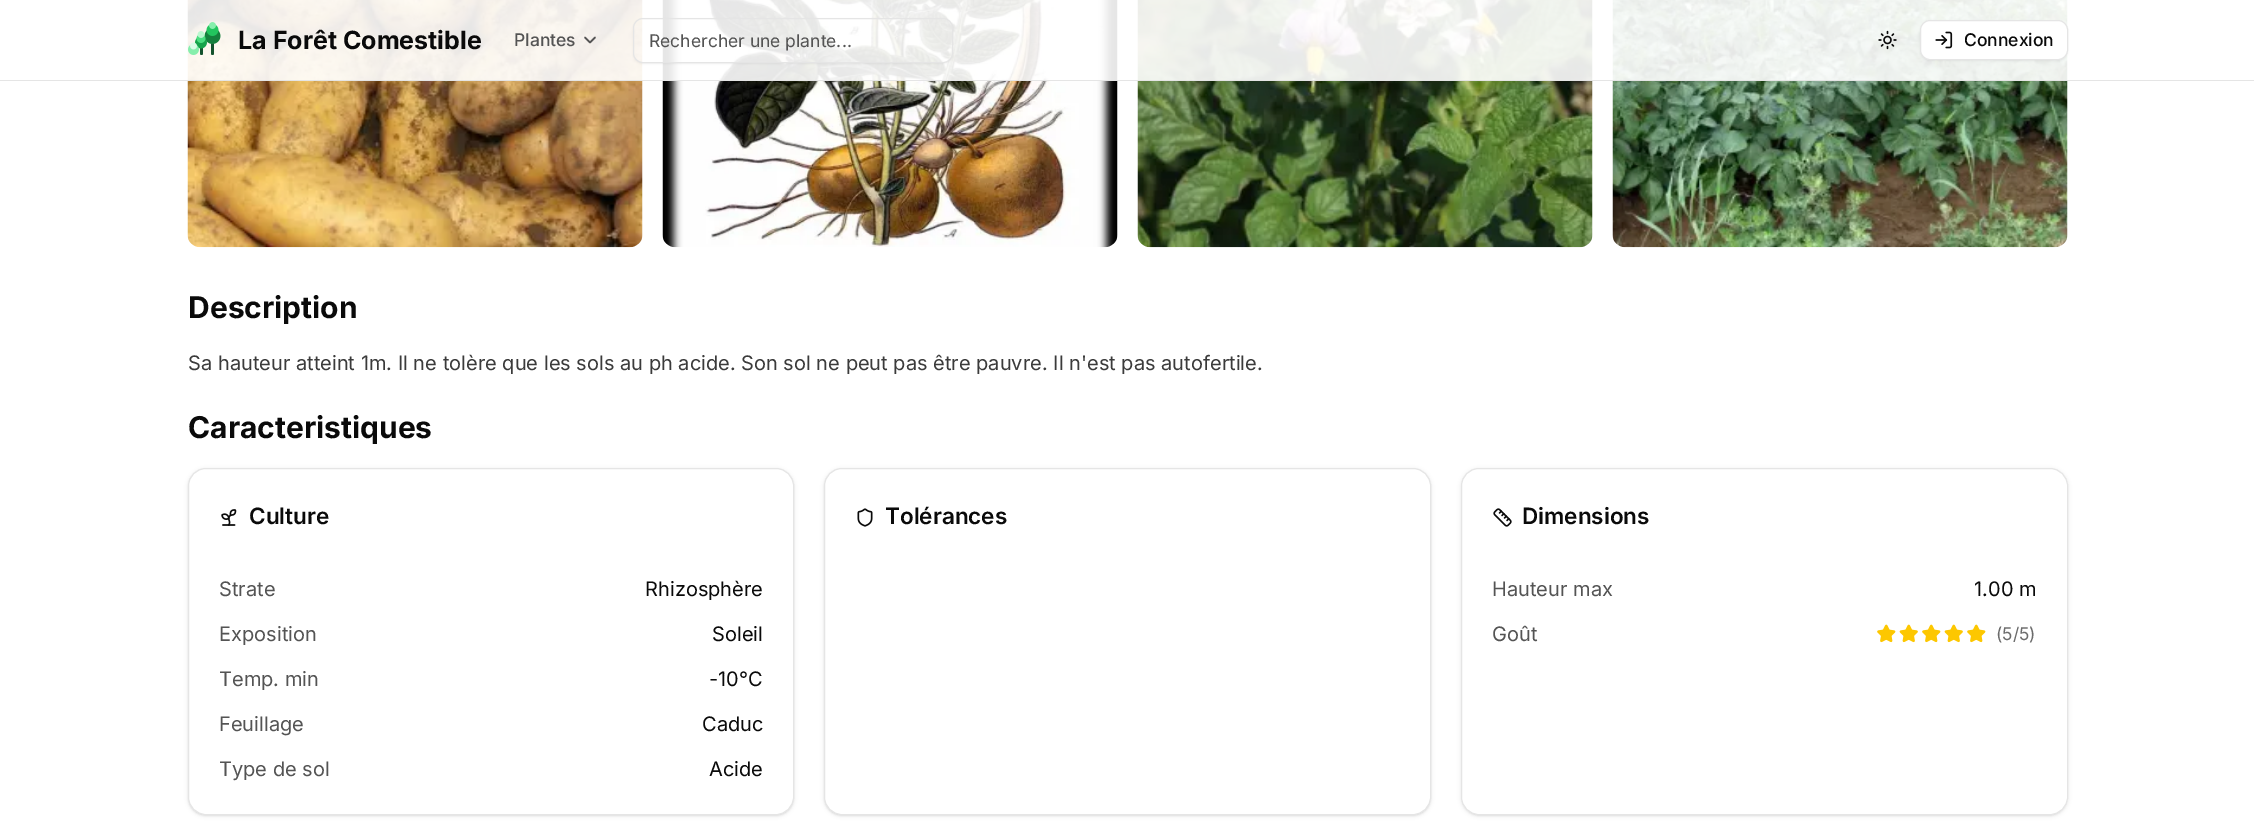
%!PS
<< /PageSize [2254 838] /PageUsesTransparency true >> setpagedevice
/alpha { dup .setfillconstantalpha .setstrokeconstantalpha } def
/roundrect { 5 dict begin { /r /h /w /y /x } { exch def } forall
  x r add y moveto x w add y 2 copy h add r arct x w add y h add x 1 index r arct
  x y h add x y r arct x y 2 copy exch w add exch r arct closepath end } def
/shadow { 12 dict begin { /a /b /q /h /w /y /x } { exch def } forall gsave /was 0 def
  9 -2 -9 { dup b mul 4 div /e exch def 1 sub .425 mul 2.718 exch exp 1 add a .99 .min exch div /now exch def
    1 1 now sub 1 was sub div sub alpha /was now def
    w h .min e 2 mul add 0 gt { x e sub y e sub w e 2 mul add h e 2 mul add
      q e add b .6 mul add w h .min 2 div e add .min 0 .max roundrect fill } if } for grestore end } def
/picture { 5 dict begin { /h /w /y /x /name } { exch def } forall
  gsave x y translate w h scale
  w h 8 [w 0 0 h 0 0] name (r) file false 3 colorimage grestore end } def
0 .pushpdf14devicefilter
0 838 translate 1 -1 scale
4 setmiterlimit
1 setgray
0 0 2254 838 rectfill
(img4.rgb) 187 0 456 248 picture
(img5.rgb) 662 0 456 248 picture
(img6.rgb) 1137 0 456 248 picture
(img7.rgb) 1612 0 456 248 picture
0.9 alpha
187 0 1881 80 rectfill
1 alpha
0.898 setgray
0 80 2254 1 rectfill
(img1.rgb) 188 22 33 33 picture
/Inter-Bold [25 0 0 -25 0 0] selectfont
0.039 setgray
238 49 moveto (La Forêt Comestible) show
/Inter-Medium [17.5 0 0 -17.5 0 0] selectfont
0.329 setgray
514 46 moveto (Plantes) show
0.333 setgray
1.7 setlinewidth
1 setlinecap
1 setlinejoin
newpath 585 37.5 moveto 590 42.5 lineto 595 37.5 lineto stroke
gsave
newpath 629 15 moveto 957 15 lineto 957 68 lineto 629 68 lineto closepath 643 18 moveto 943 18 lineto 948.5 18 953 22.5 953 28 curveto 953 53 lineto 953 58.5 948.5 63 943 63 curveto 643 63 lineto 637.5 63 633 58.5 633 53 curveto 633 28 lineto 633 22.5 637.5 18 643 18 curveto closepath eoclip newpath
0 setgray
633 19 320 45 10 1 0.05 shadow
grestore
0.898 setgray
1 setlinewidth
0 setlinecap
0 setlinejoin
633.5 18.5 319 44 9.5 roundrect stroke
/Inter-Regular [17.5 0 0 -17.5 0 0] selectfont
0.329 setgray
649 47 moveto (Rechercher une plante...) show
(img2.rgb) 1878 30 19 20 picture
0 setgray
1920 21 148 40 10 1 0.05 shadow
1 setgray
1920.5 20.5 147 39 9.5 roundrect gsave fill grestore
0.898 setgray
stroke
(img3.rgb) 1935 31 18 18 picture
/Inter-Medium [17.5 0 0 -17.5 0 0] selectfont
0.039 setgray
1964 46 moveto (Connexion) show
/Inter-Bold [30 0 0 -30 0 0] selectfont
188 318 moveto (Description) show
/Inter-Regular [20 0 0 -20 0 0] selectfont
0.231 setgray
188 370 moveto (Sa hauteur atteint 1m. Il ne tolère que les sols au ph acide. Son sol ne peut pas être pauvre. Il n'est pas autofertile.) show
/Inter-Bold [30 0 0 -30 0 0] selectfont
0.039 setgray
188 438 moveto (Caracteristiques) show
0 setgray
189 470 604 345 16 1 0.1 shadow
188 469 606 347 18 2 0.1 shadow
1 setgray
188.5 468.5 605 346 17.5 roundrect gsave fill grestore
0.898 setgray
stroke
(img8.rgb) 221 509 16 17 picture
/Inter-SemiBold [22.5 0 0 -22.5 0 0] selectfont
0.039 setgray
249 524 moveto (Culture) show
/Inter-Regular [20 0 0 -20 0 0] selectfont
0.329 setgray
219 596 moveto (Strate) show
0.039 setgray
645 596 moveto (Rhizosphère) show
0.329 setgray
219 641 moveto (Exposition) show
0.039 setgray
712 641 moveto (Soleil) show
0.329 setgray
219 686 moveto (Temp. min) show
0.039 setgray
709 686 moveto (-10°C) show
0.329 setgray
219 731 moveto (Feuillage) show
0.039 setgray
702 731 moveto (Caduc) show
0.329 setgray
219 776 moveto (Type de sol) show
0.039 setgray
709 776 moveto (Acide) show
0 setgray
825 470 605 345 16 1 0.1 shadow
824 469 607 347 18 2 0.1 shadow
1 setgray
824.5 468.5 606 346 17.5 roundrect gsave fill grestore
0.898 setgray
stroke
(img9.rgb) 857 508 16 19 picture
/Inter-SemiBold [22.5 0 0 -22.5 0 0] selectfont
0.039 setgray
885 524 moveto (Tolérances) show
0 setgray
1463 470 603 345 16 1 0.1 shadow
1461 469 607 347 18 2 0.1 shadow
1 setgray
1461.5 468.5 606 346 17.5 roundrect gsave fill grestore
0.898 setgray
stroke
(img10.rgb) 1493 508 19 19 picture
0.039 setgray
1522 524 moveto (Dimensions) show
/Inter-Regular [20 0 0 -20 0 0] selectfont
0.329 setgray
1492 596 moveto (Hauteur max) show
0.039 setgray
1974 596 moveto (1.00 m) show
0.329 setgray
1492 641 moveto (Goût) show
(img11.rgb) 1877 624 19 19 picture
(img12.rgb) 1899 624 19 19 picture
(img11.rgb) 1922 624 19 19 picture
(img12.rgb) 1944 624 19 19 picture
(img11.rgb) 1967 624 19 19 picture
/Inter-Regular [17.5 0 0 -17.5 0 0] selectfont
0.424 setgray
1996 640 moveto (\(5/5\)) show
.poppdf14devicefilter showpage
